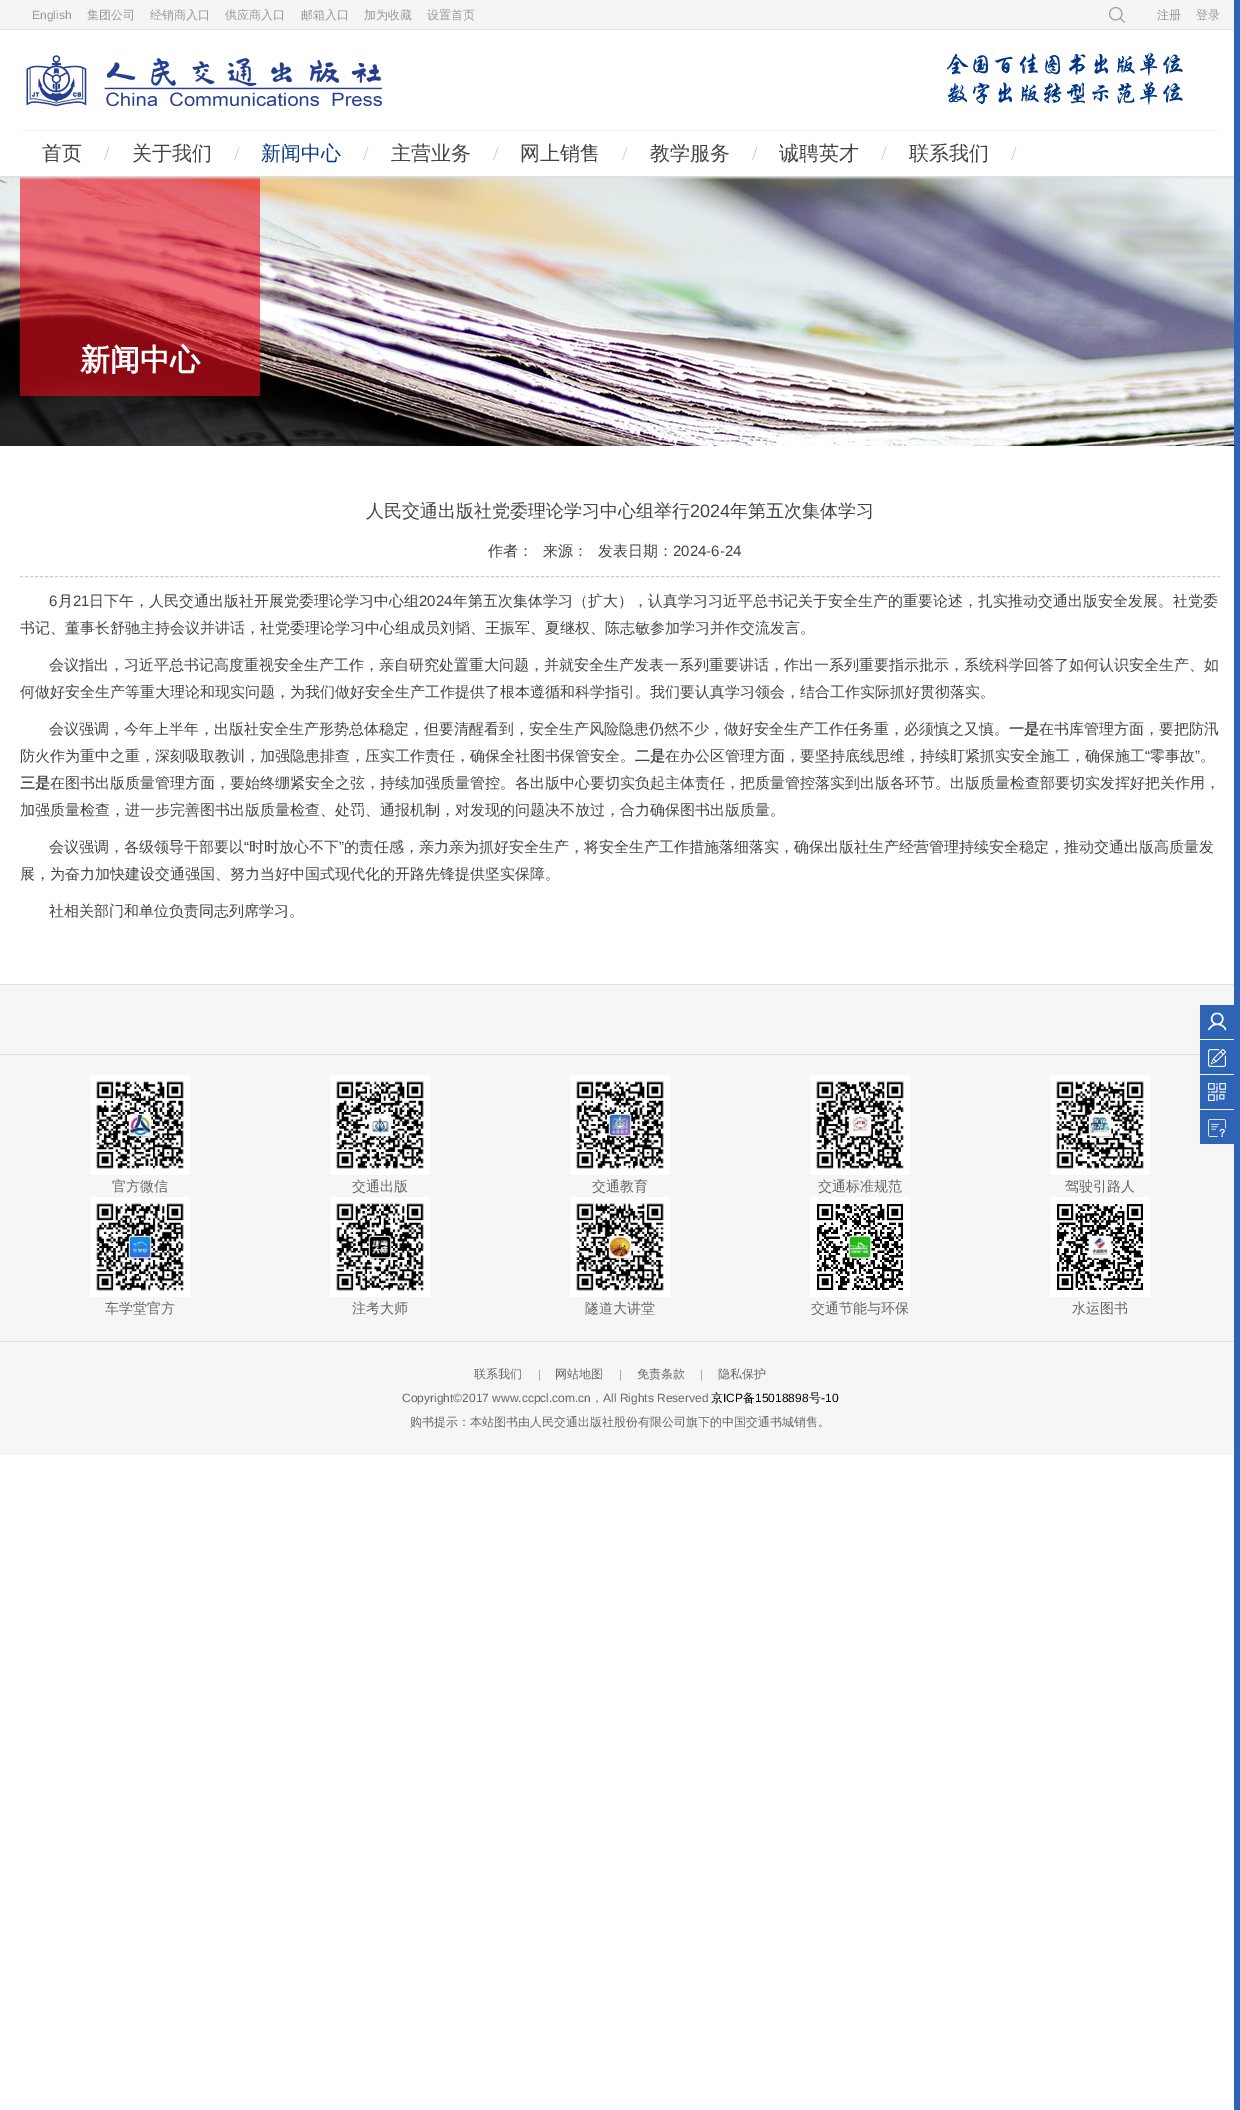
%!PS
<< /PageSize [1240 2110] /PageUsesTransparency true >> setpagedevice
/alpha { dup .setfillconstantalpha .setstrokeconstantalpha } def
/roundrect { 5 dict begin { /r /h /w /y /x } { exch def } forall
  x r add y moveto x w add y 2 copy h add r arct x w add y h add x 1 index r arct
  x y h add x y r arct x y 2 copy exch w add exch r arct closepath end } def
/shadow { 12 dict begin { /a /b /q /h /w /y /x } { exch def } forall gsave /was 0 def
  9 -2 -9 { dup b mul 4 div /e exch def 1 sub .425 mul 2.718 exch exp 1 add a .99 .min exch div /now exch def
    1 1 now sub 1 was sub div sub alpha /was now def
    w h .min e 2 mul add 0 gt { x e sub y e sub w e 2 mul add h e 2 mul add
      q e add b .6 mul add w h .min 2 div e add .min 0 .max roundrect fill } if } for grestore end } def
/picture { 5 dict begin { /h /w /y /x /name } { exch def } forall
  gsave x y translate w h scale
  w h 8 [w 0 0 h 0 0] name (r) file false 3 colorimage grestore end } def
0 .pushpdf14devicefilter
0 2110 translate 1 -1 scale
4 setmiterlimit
1 setgray
0 0 1240 2110 rectfill
0.902 setgray
0 29 1240 1 rectfill
(img8.rgb) 0 176 1234 270 picture
0.6 alpha
0.91 0.051 0.118 setrgbcolor
20 176 240 220 rectfill
gsave
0 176 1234 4 rectclip
1 alpha
0.875 setgray
0 132 1240 46 0 1 1 shadow
grestore
1 alpha
0.89 setgray
0 984 1240 1 rectfill
0 1341 1240 1 rectfill
0.176 0.392 0.714 setrgbcolor
1234 0 6 2110 rectfill
0.965 setgray
0 985 1234 69 rectfill
0.176 0.392 0.714 setrgbcolor
1200 1005 34 34 rectfill
(img1.rgb) 1208 1012 19 19 picture
0.965 setgray
0 1055 1234 286 rectfill
0.176 0.392 0.714 setrgbcolor
1200 1040 34 34 rectfill
(img2.rgb) 1208 1049 18 18 picture
1200 1075 34 34 rectfill
(img3.rgb) 1208 1083 18 18 picture
1200 1110 34 34 rectfill
(img4.rgb) 1208 1119 18 18 picture
0.961 setgray
0 0 1234 29 rectfill
/LiberationSans-Regular [12 0 0 -12 0 0] selectfont
0.6 setgray
32 19 moveto (English) show
/WenQuanYiZenHei-Medium [12 0 0 -12 0 0] selectfont
87 19 moveto (集团公司) show
150 19 moveto (经销商入口) show
225 19 moveto (供应商入口) show
301 19 moveto (邮箱入口) show
364 19 moveto (加为收藏) show
427 19 moveto (设置首页) show
(img5.rgb) 1109 7 16 16 picture
1157 19 moveto (注册) show
1196 19 moveto (登录) show
(img6.rgb) 26 55 357 52 picture
(img7.rgb) 947 52 236 53 picture
0.949 setgray
20 130 1200 1 rectfill
/WenQuanYiZenHei-Medium [20 0 0 -20 0 0] selectfont
0.267 setgray
42 160 moveto (首页) show
/LiberationSerif-Regular [20 0 0 -20 0 0] selectfont
0.8 setgray
104 160 moveto (/) show
/WenQuanYiZenHei-Medium [20 0 0 -20 0 0] selectfont
0.267 setgray
132 160 moveto (关于我们) show
/LiberationSerif-Regular [20 0 0 -20 0 0] selectfont
0.8 setgray
234 160 moveto (/) show
/WenQuanYiZenHei-Medium [20 0 0 -20 0 0] selectfont
0.039 0.231 0.533 setrgbcolor
261 160 moveto (新闻中心) show
/LiberationSerif-Regular [20 0 0 -20 0 0] selectfont
0.8 setgray
363 160 moveto (/) show
/WenQuanYiZenHei-Medium [20 0 0 -20 0 0] selectfont
0.267 setgray
391 160 moveto (主营业务) show
/LiberationSerif-Regular [20 0 0 -20 0 0] selectfont
0.8 setgray
493 160 moveto (/) show
/WenQuanYiZenHei-Medium [20 0 0 -20 0 0] selectfont
0.267 setgray
520 160 moveto (网上销售) show
/LiberationSerif-Regular [20 0 0 -20 0 0] selectfont
0.8 setgray
622 160 moveto (/) show
/WenQuanYiZenHei-Medium [20 0 0 -20 0 0] selectfont
0.267 setgray
650 160 moveto (教学服务) show
/LiberationSerif-Regular [20 0 0 -20 0 0] selectfont
0.8 setgray
752 160 moveto (/) show
/WenQuanYiZenHei-Medium [20 0 0 -20 0 0] selectfont
0.267 setgray
779 160 moveto (诚聘英才) show
/LiberationSerif-Regular [20 0 0 -20 0 0] selectfont
0.8 setgray
881 160 moveto (/) show
/WenQuanYiZenHei-Medium [20 0 0 -20 0 0] selectfont
0.267 setgray
909 160 moveto (联系我们) show
/LiberationSerif-Regular [20 0 0 -20 0 0] selectfont
0.8 setgray
1011 160 moveto (/) show
/WenQuanYiZenHei-Bold [30 0 0 -30 0 0] selectfont
1 setgray
80 370 moveto (新闻中心) show
0.8 setgray
[3 2.01] 0 setdash
newpath 20 576.5 moveto 1220 576.5 lineto stroke
/WenQuanYiZenHei-Medium [18 0 0 -18 0 0] selectfont
0.267 setgray
366 517 moveto (人民交通出版社党委理论学习中心组举行) show
/LiberationSans-Regular [18 0 0 -18 0 0] selectfont
690 517 moveto (2024) show
/WenQuanYiZenHei-Medium [18 0 0 -18 0 0] selectfont
730 517 moveto (年第五次集体学习) show
/WenQuanYiZenHei-Medium [15 0 0 -15 0 0] selectfont
488 556 moveto (作者：) show
543 556 moveto (来源：) show
598 556 moveto (发表日期：) show
/LiberationSans-Regular [15 0 0 -15 0 0] selectfont
673 556 moveto (2024-6-24) show
49 606 moveto (6) show
/WenQuanYiZenHei-Medium [15 0 0 -15 0 0] selectfont
58 606 moveto (月) show
/LiberationSans-Regular [15 0 0 -15 0 0] selectfont
73 606 moveto (21) show
/WenQuanYiZenHei-Medium [15 0 0 -15 0 0] selectfont
89 606 moveto (日下午，人民交通出版社开展党委理论学习中心组) show
/LiberationSans-Regular [15 0 0 -15 0 0] selectfont
419 606 moveto (2024) show
/WenQuanYiZenHei-Medium [15 0 0 -15 0 0] selectfont
453 606 moveto (年第五次集体学习（扩大），认真学习习近平总书记关于安全生产的重要论述，扎实推动交通出版安全发展。社党委) show
20 633 moveto (书记、董事长舒驰主持会议并讲话，社党委理论学习中心组成员刘韬、王振军、夏继权、陈志敏参加学习并作交流发言。) show
49 670 moveto (会议指出，习近平总书记高度重视安全生产工作，亲自研究处置重大问题，并就安全生产发表一系列重要讲话，作出一系列重要指示批示，系统科学回答了如何认识安全生产、如) show
20 697 moveto (何做好安全生产等重大理论和现实问题，为我们做好安全生产工作提供了根本遵循和科学指引。我们要认真学习领会，结合工作实际抓好贯彻落实。) show
49 734 moveto (会议强调，今年上半年，出版社安全生产形势总体稳定，但要清醒看到，安全生产风险隐患仍然不少，做好安全生产工作任务重，必须慎之又慎。) show
/WenQuanYiZenHei-Bold [15 0 0 -15 0 0] selectfont
1009 734 moveto (一是) show
/WenQuanYiZenHei-Medium [15 0 0 -15 0 0] selectfont
1039 734 moveto (在书库管理方面，要把防汛) show
20 761 moveto (防火作为重中之重，深刻吸取教训，加强隐患排查，压实工作责任，确保全社图书保管安全。) show
/WenQuanYiZenHei-Bold [15 0 0 -15 0 0] selectfont
635 761 moveto (二是) show
/WenQuanYiZenHei-Medium [15 0 0 -15 0 0] selectfont
665 761 moveto (在办公区管理方面，要坚持底线思维，持续盯紧抓实安全施工，确保施工) show
/LiberationSans-Regular [15 0 0 -15 0 0] selectfont
1145 761 moveto (“) show
/WenQuanYiZenHei-Medium [15 0 0 -15 0 0] selectfont
1150 761 moveto (零事故) show
/LiberationSans-Regular [15 0 0 -15 0 0] selectfont
1195 761 moveto (”) show
/WenQuanYiZenHei-Medium [15 0 0 -15 0 0] selectfont
1200 761 moveto (。) show
/WenQuanYiZenHei-Bold [15 0 0 -15 0 0] selectfont
20 788 moveto (三是) show
/WenQuanYiZenHei-Medium [15 0 0 -15 0 0] selectfont
50 788 moveto (在图书出版质量管理方面，要始终绷紧安全之弦，持续加强质量管控。各出版中心要切实负起主体责任，把质量管控落实到出版各环节。出版质量检查部要切实发挥好把关作用，) show
20 815 moveto (加强质量检查，进一步完善图书出版质量检查、处罚、通报机制，对发现的问题决不放过，合力确保图书出版质量。) show
49 852 moveto (会议强调，各级领导干部要以) show
/LiberationSans-Regular [15 0 0 -15 0 0] selectfont
244 852 moveto (“) show
/WenQuanYiZenHei-Medium [15 0 0 -15 0 0] selectfont
249 852 moveto (时时放心不下) show
/LiberationSans-Regular [15 0 0 -15 0 0] selectfont
339 852 moveto (”) show
/WenQuanYiZenHei-Medium [15 0 0 -15 0 0] selectfont
344 852 moveto (的责任感，亲力亲为抓好安全生产，将安全生产工作措施落细落实，确保出版社生产经营管理持续安全稳定，推动交通出版高质量发) show
20 879 moveto (展，为奋力加快建设交通强国、努力当好中国式现代化的开路先锋提供坚实保障。) show
49 916 moveto (社相关部门和单位负责同志列席学习。) show
0.89 setgray
0 1054 1200 1 rectfill
(img9.rgb) 90 1075 100 100 picture
(img10.rgb) 330 1075 100 100 picture
(img11.rgb) 570 1075 100 100 picture
(img12.rgb) 810 1075 100 100 picture
(img13.rgb) 1050 1075 100 100 picture
/WenQuanYiZenHei-Medium [14 0 0 -14 0 0] selectfont
0.4 setgray
112 1191 moveto (官方微信) show
352 1191 moveto (交通出版) show
592 1191 moveto (交通教育) show
818 1191 moveto (交通标准规范) show
1065 1191 moveto (驾驶引路人) show
(img14.rgb) 90 1197 100 100 picture
(img15.rgb) 330 1197 100 100 picture
(img16.rgb) 570 1197 100 100 picture
(img17.rgb) 810 1197 100 100 picture
(img18.rgb) 1050 1197 100 100 picture
105 1313 moveto (车学堂官方) show
352 1313 moveto (注考大师) show
585 1313 moveto (隧道大讲堂) show
811 1313 moveto (交通节能与环保) show
1072 1313 moveto (水运图书) show
0.965 setgray
0 1342 1234 113 rectfill
/WenQuanYiZenHei-Medium [12 0 0 -12 0 0] selectfont
0.4 setgray
474 1378 moveto (联系我们) show
/LiberationSerif-Regular [12 0 0 -12 0 0] selectfont
538 1378 moveto (|) show
/WenQuanYiZenHei-Medium [12 0 0 -12 0 0] selectfont
555 1378 moveto (网站地图) show
/LiberationSerif-Regular [12 0 0 -12 0 0] selectfont
619 1378 moveto (|) show
/WenQuanYiZenHei-Medium [12 0 0 -12 0 0] selectfont
637 1378 moveto (免责条款) show
/LiberationSerif-Regular [12 0 0 -12 0 0] selectfont
700 1378 moveto (|) show
/WenQuanYiZenHei-Medium [12 0 0 -12 0 0] selectfont
718 1378 moveto (隐私保护) show
/LiberationSans-Regular [12 0 0 -12 0 0] selectfont
402 1402 moveto (Copyright©2017 www.ccpcl.com.cn) show
/WenQuanYiZenHei-Medium [12 0 0 -12 0 0] selectfont
591 1402 moveto (，) show
/LiberationSans-Regular [12 0 0 -12 0 0] selectfont
603 1402 moveto (All Rights Reserved) show
/WenQuanYiZenHei-Medium [12 0 0 -12 0 0] selectfont
0 setgray
711 1402 moveto (京) show
/LiberationSans-Regular [12 0 0 -12 0 0] selectfont
723 1402 moveto (ICP) show
/WenQuanYiZenHei-Medium [12 0 0 -12 0 0] selectfont
743 1402 moveto (备) show
/LiberationSans-Regular [12 0 0 -12 0 0] selectfont
755 1402 moveto (15018898) show
/WenQuanYiZenHei-Medium [12 0 0 -12 0 0] selectfont
809 1402 moveto (号) show
/LiberationSans-Regular [12 0 0 -12 0 0] selectfont
821 1402 moveto (-10) show
/WenQuanYiZenHei-Medium [12 0 0 -12 0 0] selectfont
0.4 setgray
410 1426 moveto (购书提示：本站图书由人民交通出版社股份有限公司旗下的中国交通书城销售。) show
.poppdf14devicefilter showpage
